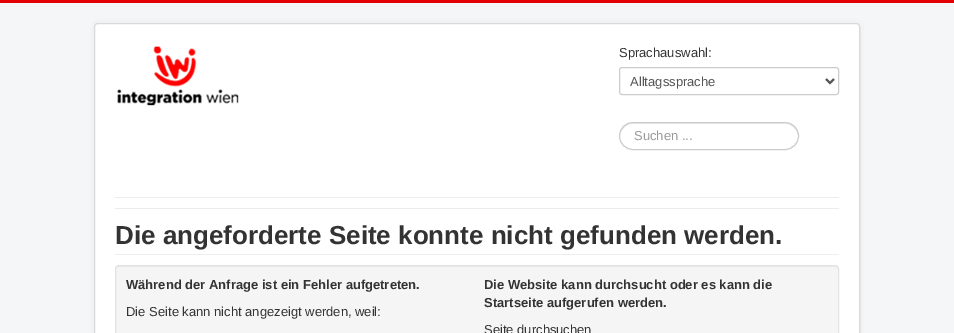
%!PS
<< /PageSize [954 333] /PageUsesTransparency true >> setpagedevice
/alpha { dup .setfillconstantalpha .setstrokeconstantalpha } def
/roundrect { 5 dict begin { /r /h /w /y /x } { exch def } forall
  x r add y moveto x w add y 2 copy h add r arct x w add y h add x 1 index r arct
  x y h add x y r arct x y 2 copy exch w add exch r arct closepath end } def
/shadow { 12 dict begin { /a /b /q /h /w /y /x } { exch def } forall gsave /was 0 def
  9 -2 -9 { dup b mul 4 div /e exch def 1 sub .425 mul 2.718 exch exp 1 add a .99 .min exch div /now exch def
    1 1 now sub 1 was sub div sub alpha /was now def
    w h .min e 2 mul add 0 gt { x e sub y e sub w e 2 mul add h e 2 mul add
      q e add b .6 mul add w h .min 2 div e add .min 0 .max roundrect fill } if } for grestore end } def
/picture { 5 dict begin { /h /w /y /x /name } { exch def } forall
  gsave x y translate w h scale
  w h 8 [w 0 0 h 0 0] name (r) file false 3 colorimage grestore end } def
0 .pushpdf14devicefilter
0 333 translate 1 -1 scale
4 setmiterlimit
0.957 0.965 0.969 setrgbcolor
0 0 954 333 rectfill
0.898 0 0 setrgbcolor
0 0 954 3 rectfill
0 setgray
94 23 766 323 4 3 0.05 shadow
1 setgray
94 23 766 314 4 roundrect fill
0.15 alpha
0 setgray
94.5 23.5 765 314 3.5 roundrect stroke
1 alpha
(img1.rgb) 117 46 122 60 picture
/LiberationSans-Regular [13 0 0 -13 0 0] selectfont
0.2 setgray
619 57 moveto (Sprachauswahl:) show
0.8 setgray
619.5 67.5 219 27 2.5 roundrect stroke
0.333 setgray
2 setlinewidth
newpath 826 79 moveto 830 83 lineto 834 79 lineto stroke
630 86 moveto (Alltagssprache) show
0.925 setgray
newpath 633 124 moveto 785 124 lineto 792 124 798 130 798 137 curveto 799 117 769 123 760 123 curveto 658 123 lineto 649 123 619 117 620 137 curveto 620 130 626 124 633 124 curveto closepath fill
0.8 setgray
1 setlinewidth
619.5 122.5 179 27 13.5 roundrect stroke
0.6 setgray
634 140 moveto (Suchen ...) show
0.925 setgray
115 197 724 1 rectfill
115 208 724 1 rectfill
0.933 setgray
115 254 724 1 rectfill
/LiberationSans-Bold [26 0 0 -26 0 0] selectfont
0.2 setgray
115 244 moveto (Die angeforderte Seite konnte nicht gefunden werden.) show
0.961 setgray
115 265 724 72 4 roundrect fill
0.914 setgray
newpath 119 267 moveto 835 267 lineto 837 267 838 268 838 270 curveto 838 268 837 266 835 266 curveto 119 266 lineto 117 266 116 268 116 270 curveto 116 268 117 267 119 267 curveto closepath fill
0.89 setgray
115.5 265.5 723 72 3.5 roundrect stroke
/LiberationSans-Bold [13 0 0 -13 0 0] selectfont
0.2 setgray
126 289 moveto (Während der Anfrage ist ein Fehler aufgetreten.) show
/LiberationSans-Regular [13 0 0 -13 0 0] selectfont
126 316 moveto (Die Seite kann nicht angezeigt werden, weil:) show
/LiberationSans-Bold [13 0 0 -13 0 0] selectfont
484 289 moveto (Die Website kann durchsucht oder es kann die) show
484 307 moveto (Startseite aufgerufen werden.) show
/LiberationSans-Regular [13 0 0 -13 0 0] selectfont
484 334 moveto (Seite durchsuchen) show
.poppdf14devicefilter showpage
